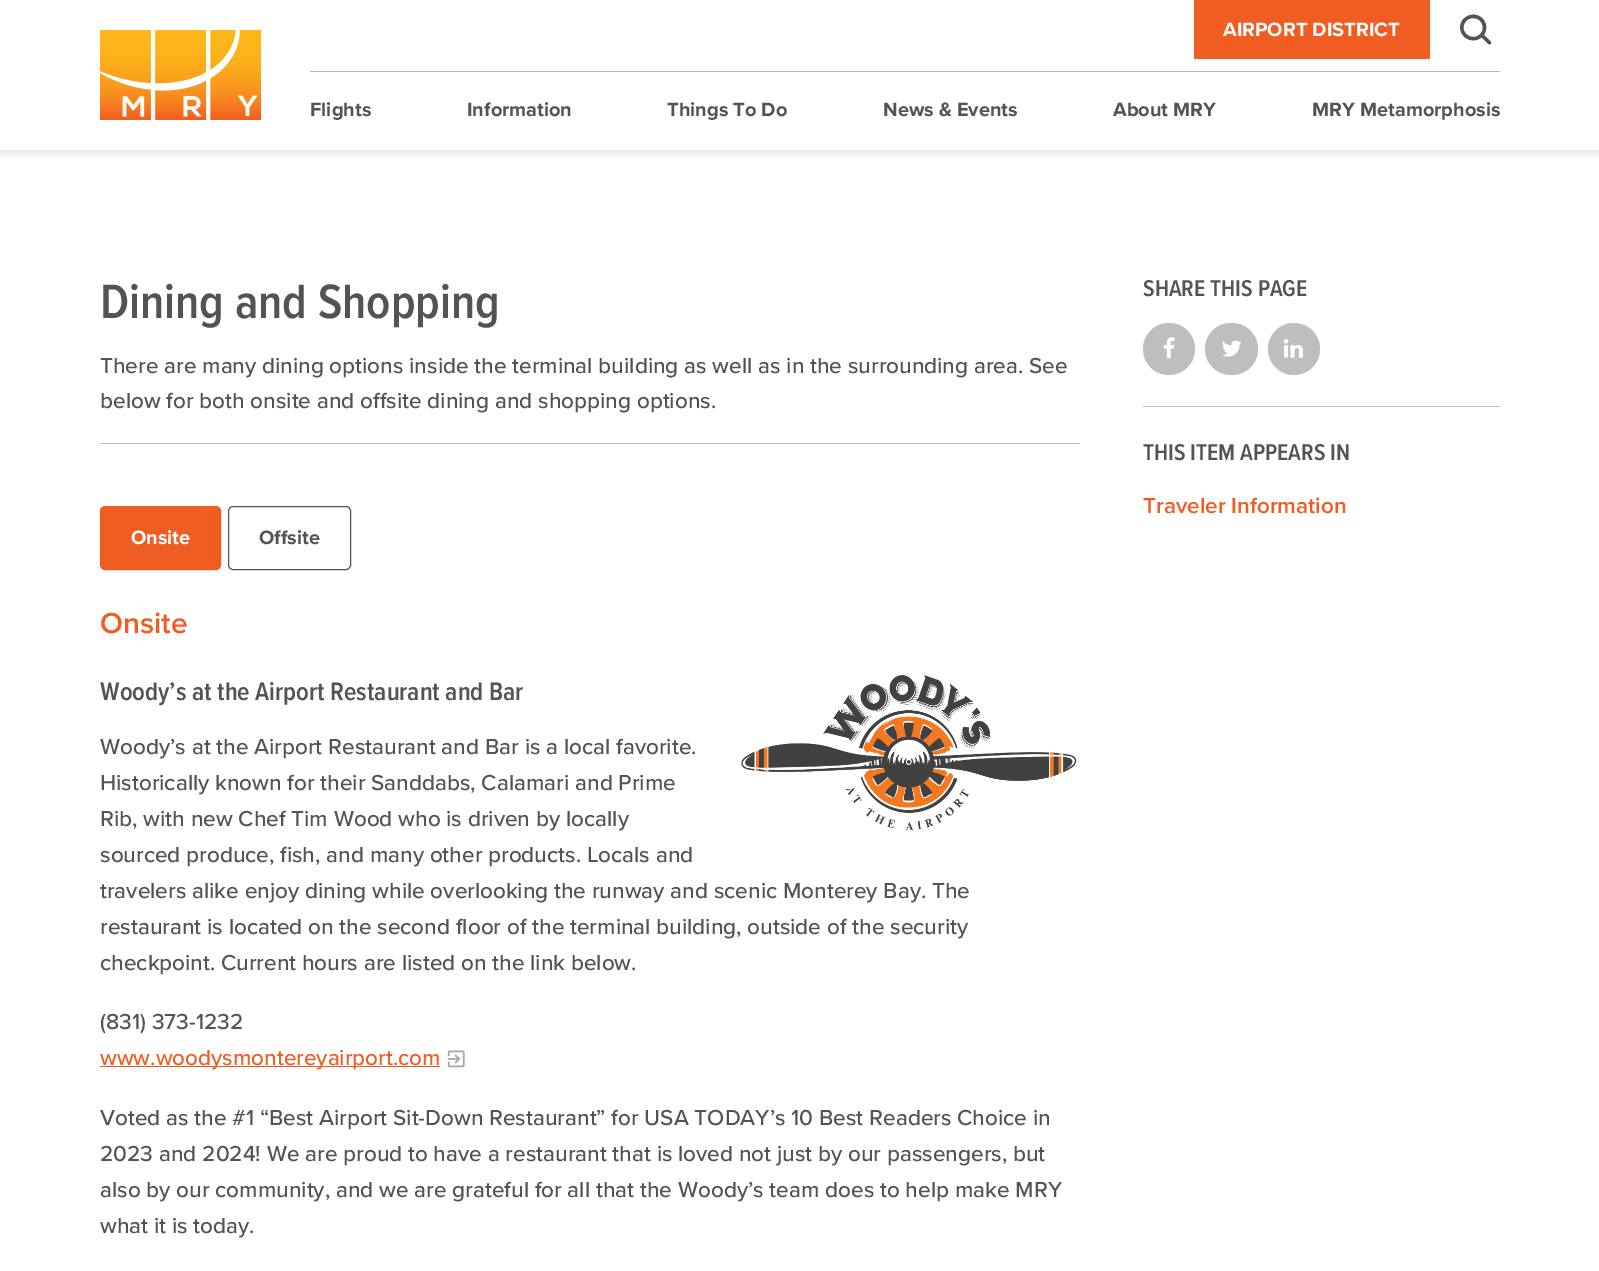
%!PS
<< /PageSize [1599 1271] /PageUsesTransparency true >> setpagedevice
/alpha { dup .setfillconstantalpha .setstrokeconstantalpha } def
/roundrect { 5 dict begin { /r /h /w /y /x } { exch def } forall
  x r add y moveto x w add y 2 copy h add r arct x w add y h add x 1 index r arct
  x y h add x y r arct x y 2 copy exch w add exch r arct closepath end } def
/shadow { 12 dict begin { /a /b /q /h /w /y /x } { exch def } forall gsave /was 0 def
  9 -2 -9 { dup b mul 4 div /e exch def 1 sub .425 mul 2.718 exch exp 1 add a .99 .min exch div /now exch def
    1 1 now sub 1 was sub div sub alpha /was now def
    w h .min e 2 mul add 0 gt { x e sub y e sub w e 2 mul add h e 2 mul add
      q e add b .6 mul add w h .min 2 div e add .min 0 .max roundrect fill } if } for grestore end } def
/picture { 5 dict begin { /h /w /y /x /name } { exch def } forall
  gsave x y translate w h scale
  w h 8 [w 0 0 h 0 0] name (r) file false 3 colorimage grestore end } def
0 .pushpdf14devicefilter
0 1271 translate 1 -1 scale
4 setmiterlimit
1 setgray
0 0 1599 1271 rectfill
gsave
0 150 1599 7 rectclip
0 setgray
0 4 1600 150 0 4 0.1 shadow
grestore
(img1.rgb) 100 30 161 90 picture
0.941 0.361 0.129 setrgbcolor
1194 0 236 59 rectfill
/ProximaNova-Bold [20 0 0 -20 0 0] selectfont
1 setgray
1223 36 moveto (AIRPORT DISTRICT) show
/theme-Regular [40 0 0 -40 0 0] selectfont
0.325 setgray
1460 42 moveto (?) show
0.722 0.714 0.714 setrgbcolor
310 71 1190 1 rectfill
/ProximaNova-Bold [20 0 0 -20 0 0] selectfont
0.325 setgray
310 116 moveto (Flights) show
467 116 moveto (Information) show
667 116 moveto (Things To Do) show
883 116 moveto (News & Events) show
1113 116 moveto (About MRY) show
1312 116 moveto (MRY Metamorphosis) show
/ProximaNova-SemiBold [50 0 0 -50 0 0] selectfont
100 318 moveto (Dining and Shopping) show
/ProximaNova-Medium [22.5 0 0 -22.5 0 0] selectfont
100 373 moveto (There are many dining options inside the terminal building as well as in the surrounding area. See) show
100 408 moveto (below for both onsite and offsite dining and shopping options.) show
0.745 setgray
100 443 980 1 rectfill
0.941 0.365 0.133 setrgbcolor
100.5 506.5 120 63 4.5 roundrect gsave fill grestore
stroke
/ProximaNova-Bold [20 0 0 -20 0 0] selectfont
1 setgray
131 544 moveto (Onsite) show
0.325 setgray
228.5 506.5 122 63 4.5 roundrect stroke
259 544 moveto (Offsite) show
/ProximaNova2-SemiBold [30 0 0 -30 0 0] selectfont
0.941 0.365 0.133 setrgbcolor
100 633 moveto (Onsite) show
/ProximaNova-SemiBold [26.25 0 0 -26.25 0 0] selectfont
0.325 setgray
100 700 moveto (Woody’s at the Airport Restaurant and Bar) show
(img2.rgb) 741 675 336 155 picture
/ProximaNova-Medium [22.5 0 0 -22.5 0 0] selectfont
100 754 moveto (Woody’s at the Airport Restaurant and Bar is a local favorite.) show
100 790 moveto (Historically known for their Sanddabs, Calamari and Prime) show
100 826 moveto (Rib, with new Chef Tim Wood who is driven by locally) show
100 862 moveto (sourced produce, fish, and many other products. Locals and) show
100 898 moveto (travelers alike enjoy dining while overlooking the runway and scenic Monterey Bay. The) show
100 934 moveto (restaurant is located on the second floor of the terminal building, outside of the security) show
100 970 moveto (checkpoint. Current hours are listed on the link below.) show
100 1029 moveto (\(831\) 373-1232) show
0.941 0.365 0.133 setrgbcolor
100 1066 340 1 rectfill
100 1065 moveto (www.woodysmontereyairport.com) show
(img3.rgb) 447 1050 18 18 picture
0.325 setgray
100 1125 moveto (Voted as the #1 “Best Airport Sit-Down Restaurant” for USA TODAY’s 10 Best Readers Choice in) show
100 1161 moveto (2023 and 2024! We are proud to have a restaurant that is loved not just by our passengers, but) show
100 1197 moveto (also by our community, and we are grateful for all that the Woody’s team does to help make MRY) show
100 1233 moveto (what it is today.) show
/ProximaNova-SemiBold [23.75 0 0 -23.75 0 0] selectfont
1143 296 moveto (SHARE THIS PAGE) show
0.745 setgray
newpath 1169 349 26 0 360 arc closepath fill
(img4.rgb) 1163 337 12 22 picture
1205 323 53 52 26 roundrect fill
(img5.rgb) 1222 340 20 17 picture
newpath 1294 349 26 0 360 arc closepath fill
(img6.rgb) 1283 339 20 19 picture
1143 406 357 1 rectfill
0.325 setgray
1143 460 moveto (THIS ITEM APPEARS IN) show
/ProximaNova2-SemiBold [22.5 0 0 -22.5 0 0] selectfont
0.941 0.365 0.133 setrgbcolor
1143 513 moveto (Traveler Information) show
.poppdf14devicefilter showpage
